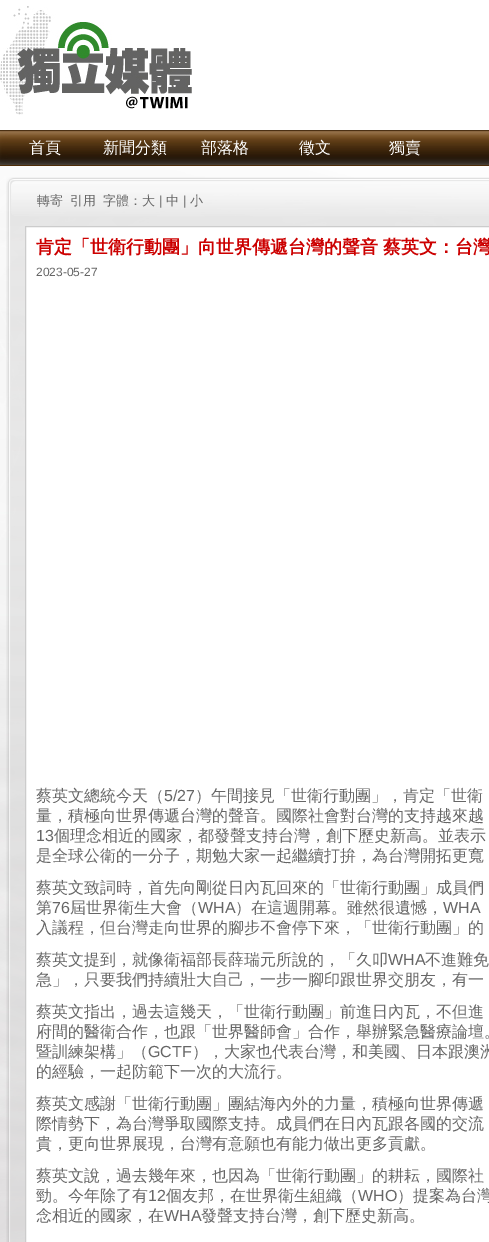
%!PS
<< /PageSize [489 1242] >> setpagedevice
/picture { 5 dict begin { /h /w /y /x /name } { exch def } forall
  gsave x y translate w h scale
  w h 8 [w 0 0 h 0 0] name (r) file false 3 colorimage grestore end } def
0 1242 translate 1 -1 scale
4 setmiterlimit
1 setgray
0 0 489 1242 rectfill
(img1.rgb) 0 0 489 1242 picture
(img2.rgb) 0 6 192 109 picture
(img3.rgb) 0 130 489 36 picture
/WenQuanYiZenHei-Medium [16 0 0 -16 0 0] selectfont
29 153 moveto (首頁) show
103 153 moveto (新聞分類) show
201 153 moveto (部落格) show
299 153 moveto (徵文) show
389 153 moveto (獨賣) show
(img4.rgb) 6 177 483 49 picture
/WenQuanYiZenHei-Medium [13 0 0 -13 0 0] selectfont
0.4 setgray
37 205 moveto (轉寄) show
70 205 moveto (引用) show
103 205 moveto (字體：大) show
/LiberationSans-Regular [13 0 0 -13 0 0] selectfont
159 205 moveto (|) show
/WenQuanYiZenHei-Medium [13 0 0 -13 0 0] selectfont
166 205 moveto (中) show
/LiberationSans-Regular [13 0 0 -13 0 0] selectfont
183 205 moveto (|) show
/WenQuanYiZenHei-Medium [13 0 0 -13 0 0] selectfont
190 205 moveto (小) show
(img5.rgb) 6 226 19 1016 picture
1 setgray
newpath 25.5 226.5 moveto 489.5 226.5 lineto 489.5 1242.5 lineto 25.5 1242.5 lineto closepath gsave fill grestore
0.8 setgray
stroke
/WenQuanYiZenHei-Bold [18 0 0 -18 0 0] selectfont
0.8 0 0 setrgbcolor
36 253 moveto (肯定「世衛行動團」向世界傳遞台灣的聲音 蔡英文：台灣) show
/LiberationSans-Regular [12 0 0 -12 0 0] selectfont
0.4 setgray
36 276 moveto (2023-05-27) show
/WenQuanYiZenHei-Medium [16 0 0 -16 0 0] selectfont
36 801 moveto (蔡英文總統今天（) show
/LiberationSans-Regular [16 0 0 -16 0 0] selectfont
164 801 moveto (5/27) show
/WenQuanYiZenHei-Medium [16 0 0 -16 0 0] selectfont
195 801 moveto (）午間接見「世衛行動團」，肯定「世衛) show
36 821 moveto (量，積極向世界傳遞台灣的聲音。國際社會對台灣的支持越來越) show
/LiberationSans-Regular [16 0 0 -16 0 0] selectfont
36 841 moveto (13) show
/WenQuanYiZenHei-Medium [16 0 0 -16 0 0] selectfont
54 841 moveto (個理念相近的國家，都發聲支持台灣，創下歷史新高。並表示) show
36 861 moveto (是全球公衛的一分子，期勉大家一起繼續打拚，為台灣開拓更寬) show
36 893 moveto (蔡英文致詞時，首先向剛從日內瓦回來的「世衛行動團」成員們) show
36 913 moveto (第) show
/LiberationSans-Regular [16 0 0 -16 0 0] selectfont
52 913 moveto (76) show
/WenQuanYiZenHei-Medium [16 0 0 -16 0 0] selectfont
70 913 moveto (屆世界衛生大會（) show
/LiberationSans-Regular [16 0 0 -16 0 0] selectfont
198 913 moveto (WHA) show
/WenQuanYiZenHei-Medium [16 0 0 -16 0 0] selectfont
235 913 moveto (）在這週開幕。雖然很遺憾，) show
/LiberationSans-Regular [16 0 0 -16 0 0] selectfont
443 913 moveto (WHA) show
/WenQuanYiZenHei-Medium [16 0 0 -16 0 0] selectfont
36 933 moveto (入議程，但台灣走向世界的腳步不會停下來，「世衛行動團」的) show
36 965 moveto (蔡英文提到，就像衛福部長薛瑞元所說的，「久叩) show
/LiberationSans-Regular [16 0 0 -16 0 0] selectfont
388 965 moveto (WHA) show
/WenQuanYiZenHei-Medium [16 0 0 -16 0 0] selectfont
425 965 moveto (不進難免) show
36 985 moveto (急」，只要我們持續壯大自己，一步一腳印跟世界交朋友，有一) show
36 1017 moveto (蔡英文指出，過去這幾天，「世衛行動團」前進日內瓦，不但進) show
36 1037 moveto (府間的醫衛合作，也跟「世界醫師會」合作，舉辦緊急醫療論壇。) show
36 1057 moveto (暨訓練架構」（) show
/LiberationSans-Regular [16 0 0 -16 0 0] selectfont
148 1057 moveto (GCTF) show
/WenQuanYiZenHei-Medium [16 0 0 -16 0 0] selectfont
192 1057 moveto (），大家也代表台灣，和美國、日本跟澳洲) show
36 1077 moveto (的經驗，一起防範下一次的大流行。) show
36 1109 moveto (蔡英文感謝「世衛行動團」團結海內外的力量，積極向世界傳遞) show
36 1129 moveto (際情勢下，為台灣爭取國際支持。成員們在日內瓦跟各國的交流) show
36 1149 moveto (貴，更向世界展現，台灣有意願也有能力做出更多貢獻。) show
36 1181 moveto (蔡英文說，過去幾年來，也因為「世衛行動團」的耕耘，國際社) show
36 1201 moveto (勁。今年除了有) show
/LiberationSans-Regular [16 0 0 -16 0 0] selectfont
148 1201 moveto (12) show
/WenQuanYiZenHei-Medium [16 0 0 -16 0 0] selectfont
166 1201 moveto (個友邦，在世界衛生組織（) show
/LiberationSans-Regular [16 0 0 -16 0 0] selectfont
358 1201 moveto (WHO) show
/WenQuanYiZenHei-Medium [16 0 0 -16 0 0] selectfont
397 1201 moveto (）提案為台灣) show
36 1221 moveto (念相近的國家，在) show
/LiberationSans-Regular [16 0 0 -16 0 0] selectfont
164 1221 moveto (WHA) show
/WenQuanYiZenHei-Medium [16 0 0 -16 0 0] selectfont
201 1221 moveto (發聲支持台灣，創下歷史新高。) show
showpage
